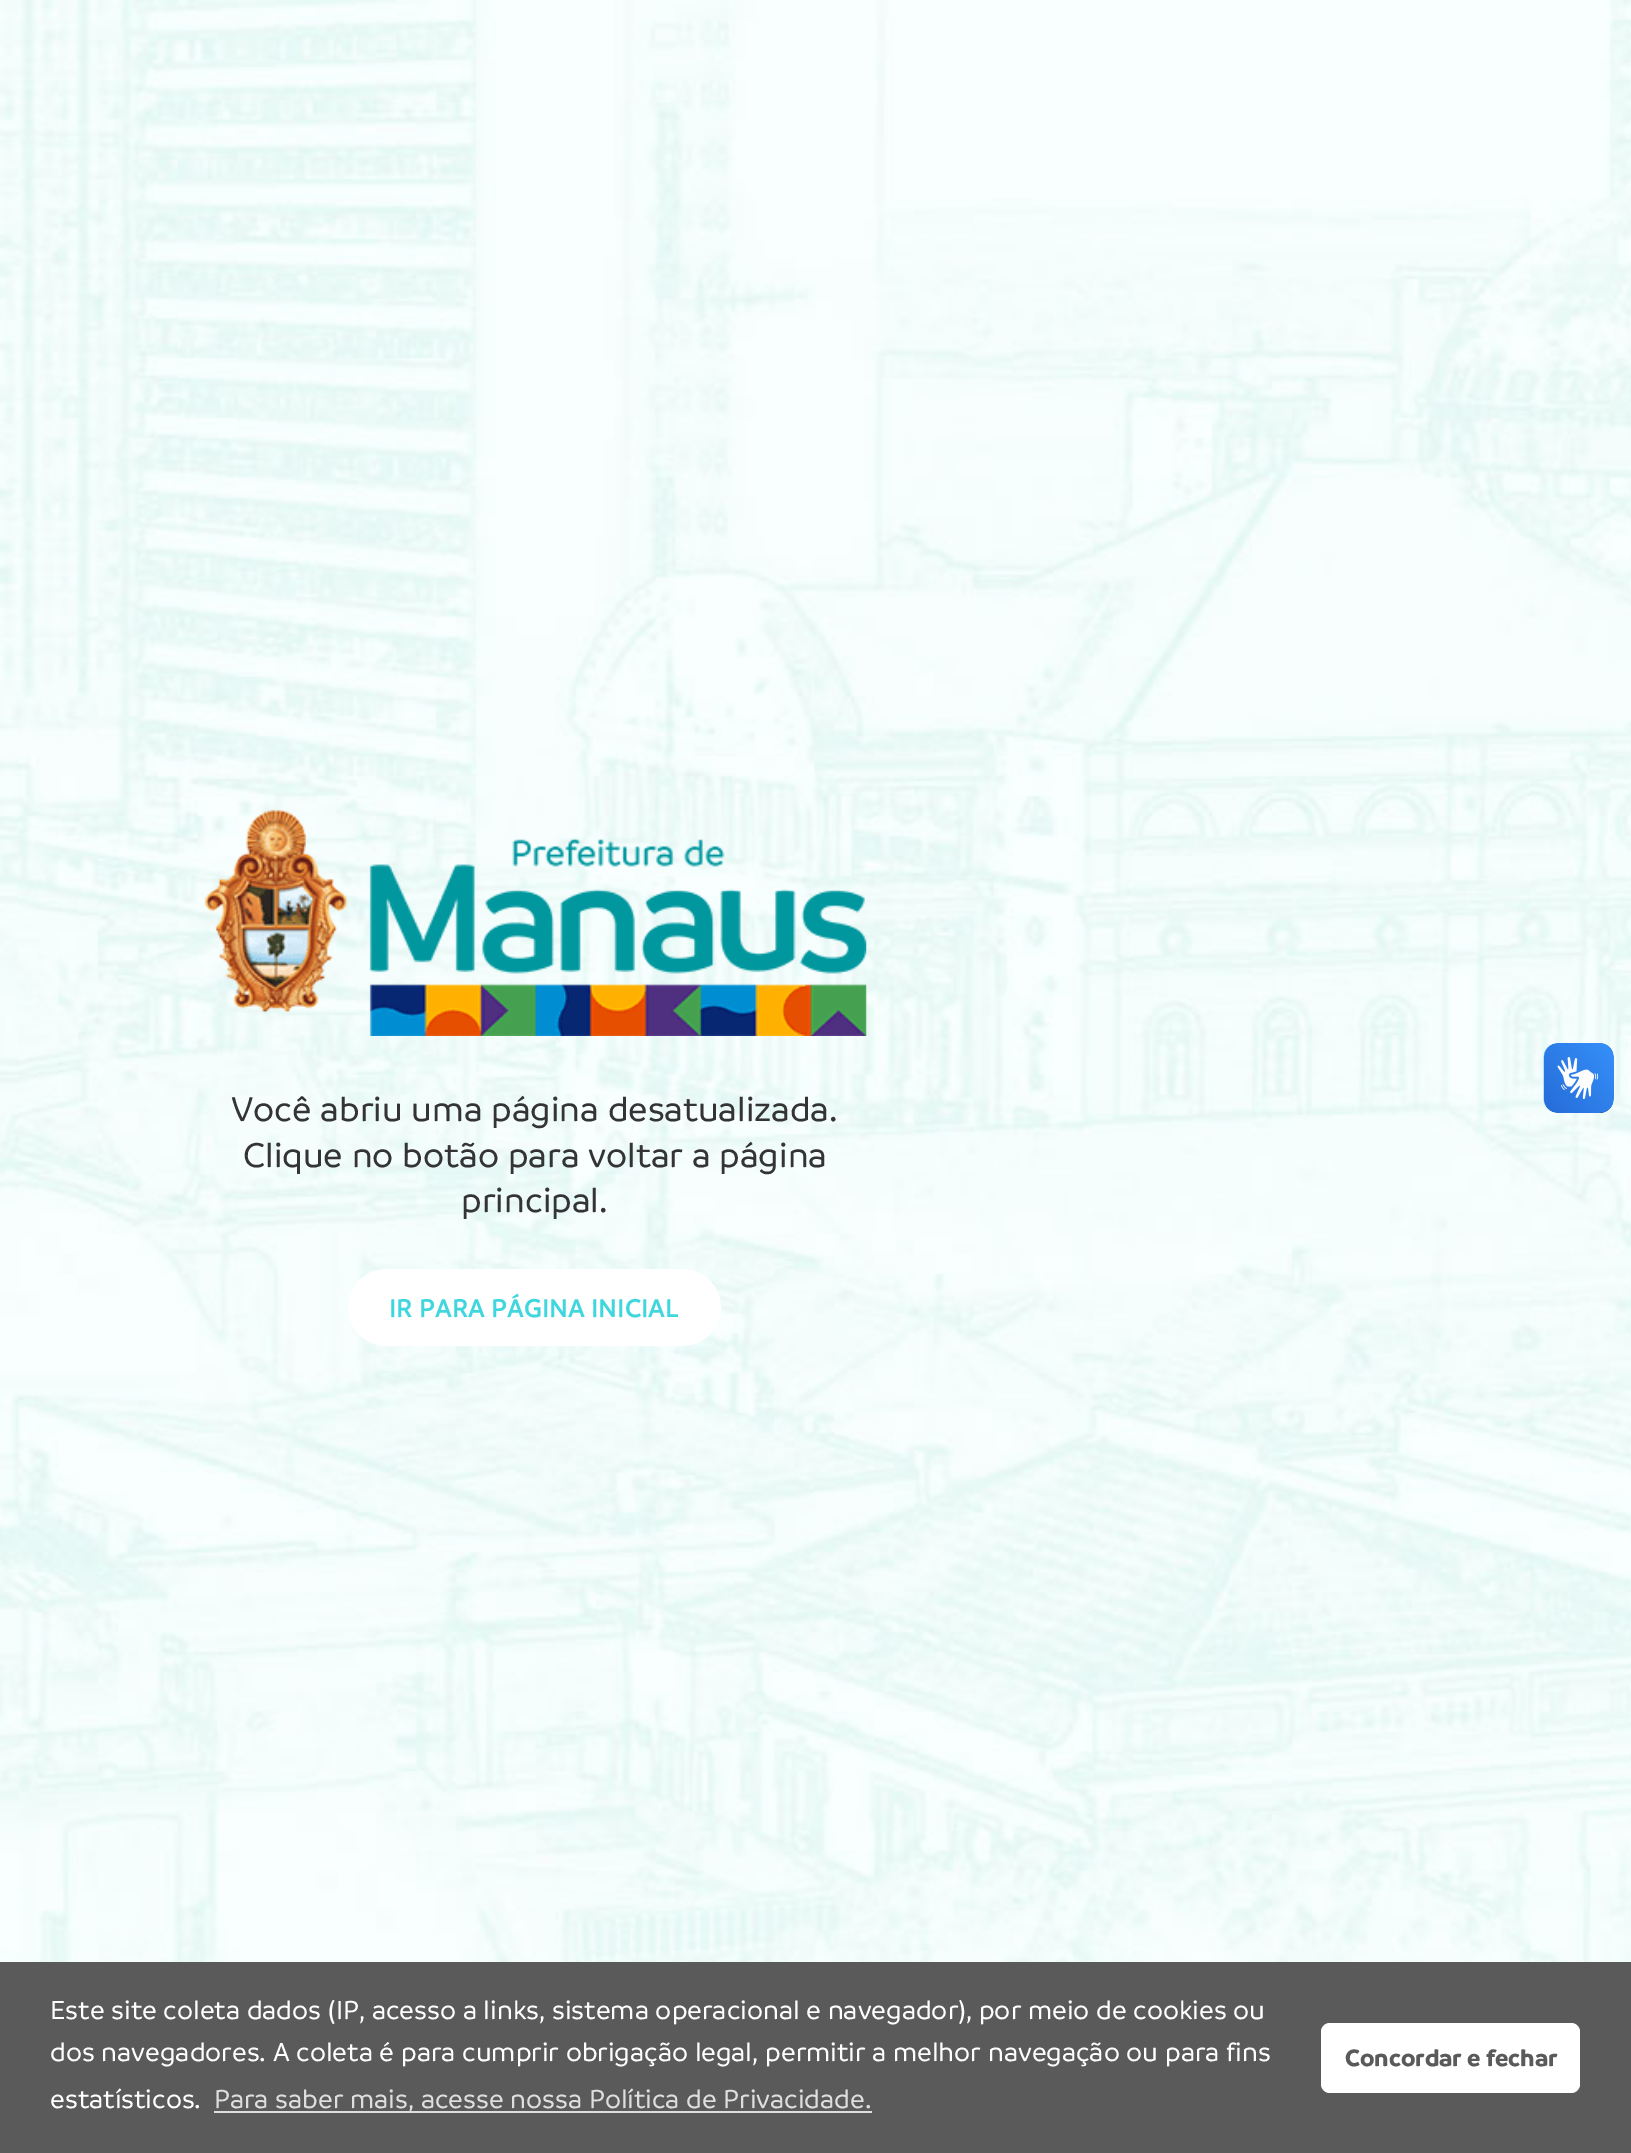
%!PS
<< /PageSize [1631 2153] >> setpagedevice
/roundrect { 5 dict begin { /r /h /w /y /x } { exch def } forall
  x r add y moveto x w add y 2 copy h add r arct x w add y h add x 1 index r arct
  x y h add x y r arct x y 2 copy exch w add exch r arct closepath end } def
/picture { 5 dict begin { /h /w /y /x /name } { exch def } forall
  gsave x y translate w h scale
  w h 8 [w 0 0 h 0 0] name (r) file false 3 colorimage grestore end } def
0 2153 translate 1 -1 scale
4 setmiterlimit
1 setgray
0 0 1631 2153 rectfill
(img3.rgb) 0 0 1631 1962 picture
(img1.rgb) 1543 1043 71 70 picture
(img2.rgb) 1544 1043 70 70 picture
(img4.rgb) 204 809 663 227 picture
/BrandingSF-Medium [36.75 0 0 -36.75 0 0] selectfont
0.204 setgray
231 1121 moveto (Você abriu uma página desatualizada.) show
243 1167 moveto (Clique no botão para voltar a página) show
461 1212 moveto (principal.) show
1 setgray
350 1271 369 73 36.5 roundrect gsave fill grestore
4 setlinewidth
stroke
/BrandingSF-SemiBold [27.5 0 0 -27.5 0 0] selectfont
0.247 0.839 0.871 setrgbcolor
389 1317 moveto (IR PARA PÁGINA INICIAL) show
0.353 setgray
0 1962 1631 191 rectfill
/BrandingSF-Medium [28 0 0 -28 0 0] selectfont
1 setgray
50 2019 moveto (Este site coleta dados \(IP, acesso a links, sistema operacional e navegador\), por meio de cookies ou) show
50 2061 moveto (dos navegadores. A coleta é para cumprir obrigação legal, permitir a melhor navegação ou para fins) show
50 2108 moveto (estatísticos.) show
0.871 setgray
214 2111 658 2 rectfill
214 2108 moveto (Para saber mais, acesse nossa Política de Privacidade.) show
1 setgray
1321 2023 259 70 9 roundrect fill
/BrandingSF-Bold [25.25 0 0 -25.25 0 0] selectfont
0.353 setgray
1345 2066 moveto (Concordar e fechar) show
showpage
